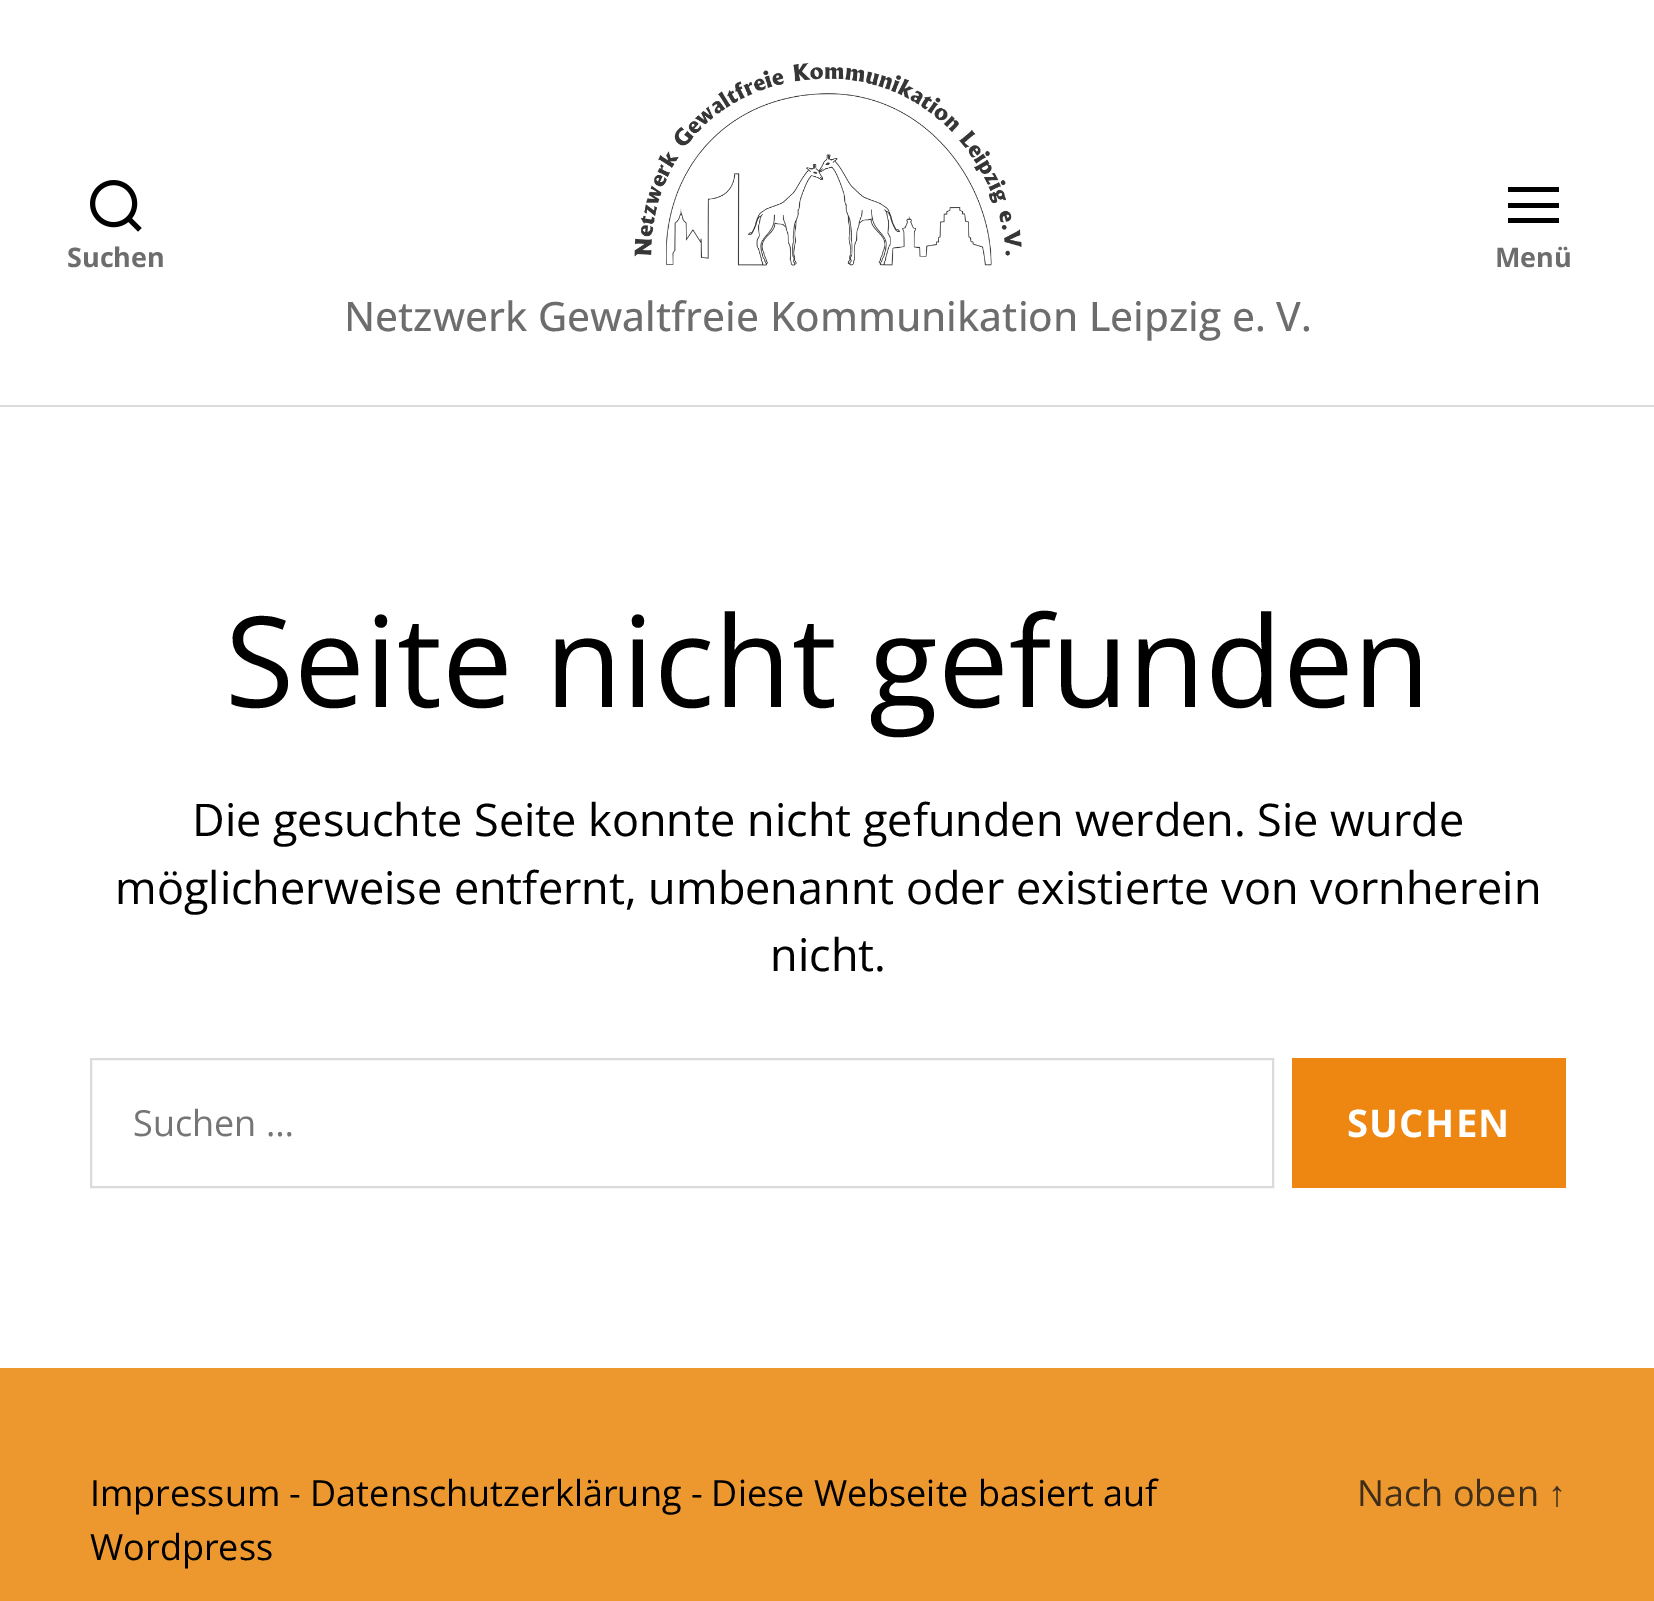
%!PS
<< /PageSize [1654 1601] >> setpagedevice
/picture { 5 dict begin { /h /w /y /x /name } { exch def } forall
  gsave x y translate w h scale
  w h 8 [w 0 0 h 0 0] name (r) file false 3 colorimage grestore end } def
0 1601 translate 1 -1 scale
4 setmiterlimit
1 setgray
0 0 1654 1601 rectfill
0.859 setgray
0 405 1654 2 rectfill
(img1.rgb) 90 180 52 52 picture
/OpenSans-Bold [27 0 0 -27 0 0] selectfont
0.427 setgray
67 267 moveto (Suchen) show
0 setgray
1508 187 51 5 rectfill
1508 218 51 5 rectfill
1508 203 51 5 rectfill
0.427 setgray
1495 267 moveto (Menü) show
(img2.rgb) 634 63 388 203 picture
/OpenSans-Medium [40.5 0 0 -40.5 0 0] selectfont
344 331 moveto (Netzwerk Gewaltfreie Kommunikation Leipzig e. V.) show
/OpenSans-Regular [126 0 0 -126 0 0] selectfont
0 setgray
225 707 moveto (Seite nicht gefunden) show
/OpenSans-Regular [45 0 0 -45 0 0] selectfont
192 836 moveto (Die gesuchte Seite konnte nicht gefunden werden. Sie wurde) show
115 904 moveto (möglicherweise entfernt, umbenannt oder existierte von vornherein) show
770 971 moveto (nicht.) show
0.859 setgray
2 setlinewidth
91 1059 1182 128 rectstroke
/OpenSans-Regular [36 0 0 -36 0 0] selectfont
0.459 setgray
133 1136 moveto (Suchen …) show
0.929 0.529 0.071 setrgbcolor
1292 1058 274 130 rectfill
/OpenSans-Bold [38.25 0 0 -38.25 0 0] selectfont
1 setgray
1347 1137 moveto 1.25 0 (SUCHEN) ashow
0.929 0.592 0.184 setrgbcolor
0 1368 1654 233 rectfill
/OpenSans-Regular [36 0 0 -36 0 0] selectfont
0 setgray
90 1506 moveto (Impressum - Datenschutzerklärung - Diese Webseite basiert auf) show
90 1560 moveto (Wordpress) show
0.239 0.176 0.098 setrgbcolor
1357 1506 moveto (Nach oben) show
/LiberationSans-Regular [36 0 0 -36 0 0] selectfont
1548 1506 moveto (↑) show
showpage
